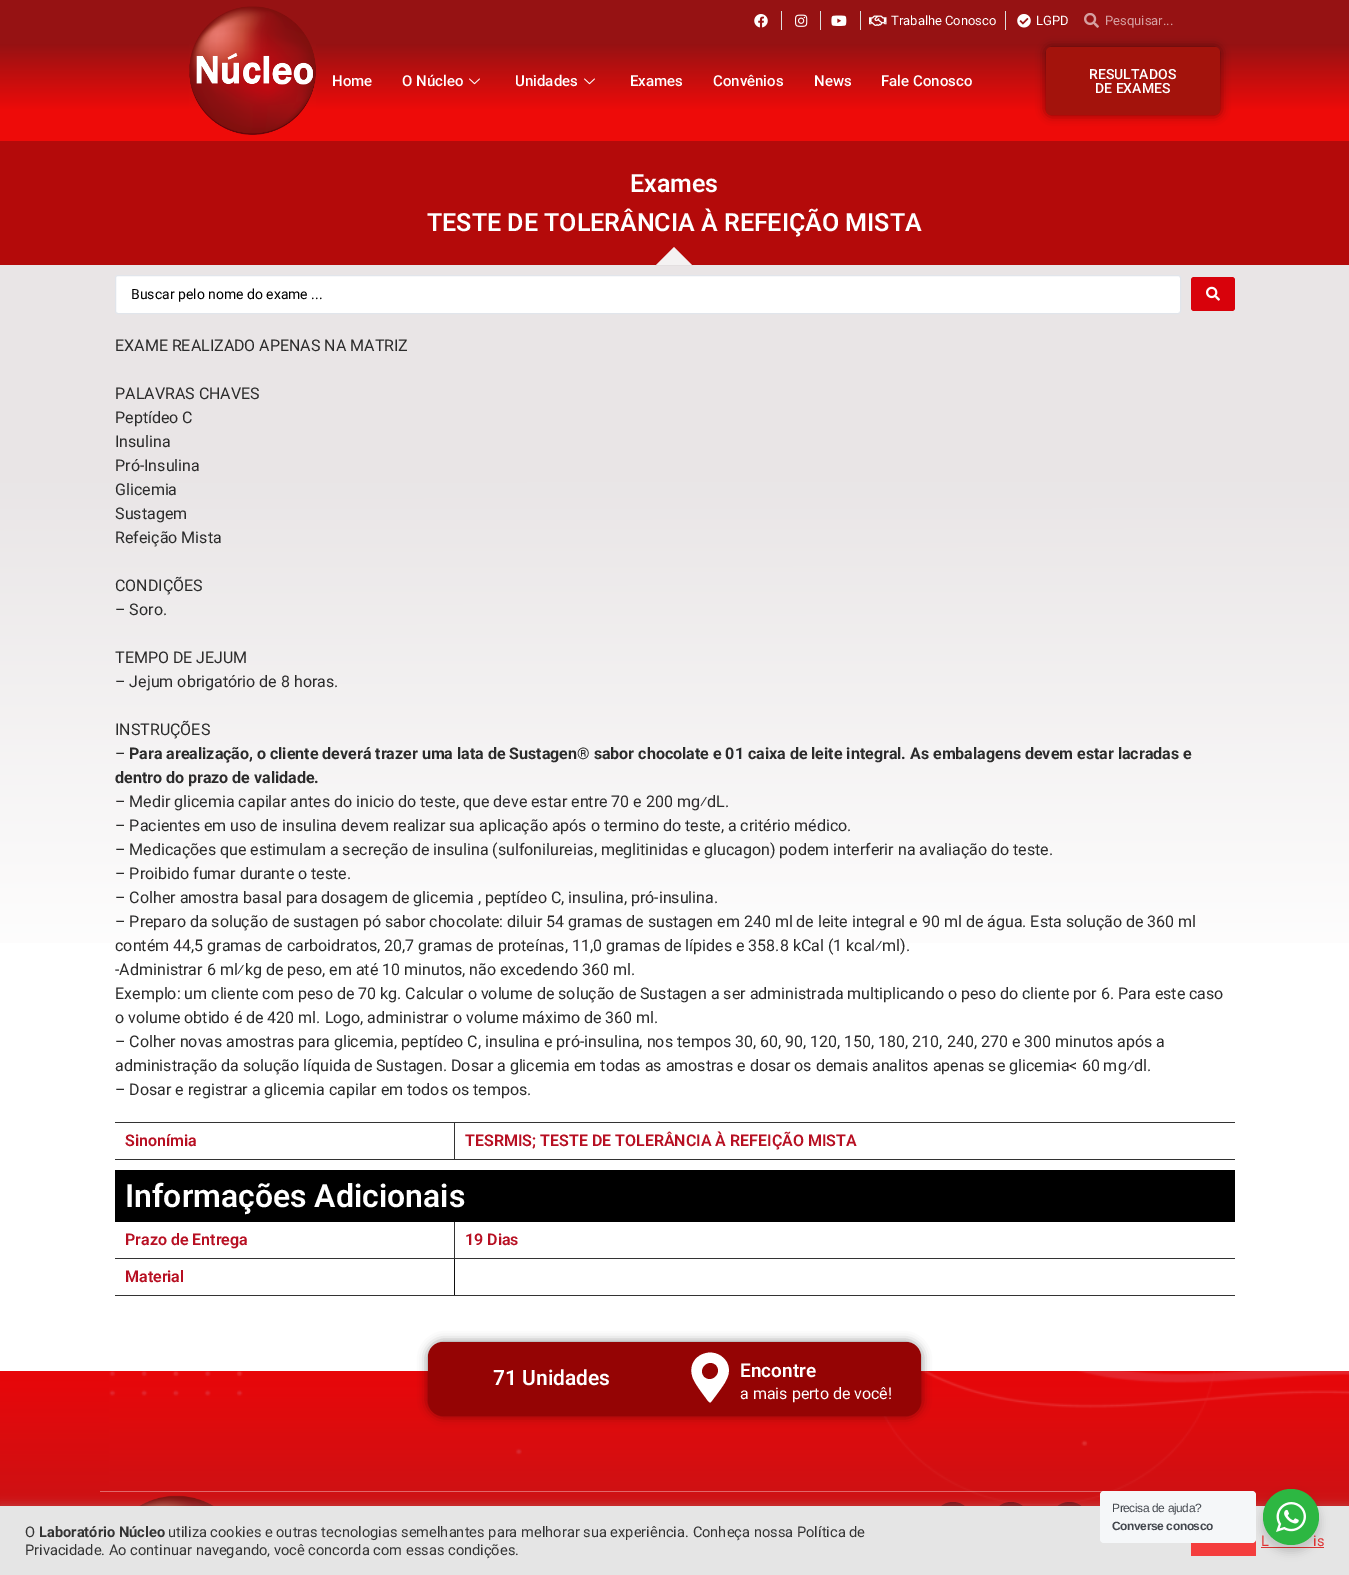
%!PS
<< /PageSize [1349 1575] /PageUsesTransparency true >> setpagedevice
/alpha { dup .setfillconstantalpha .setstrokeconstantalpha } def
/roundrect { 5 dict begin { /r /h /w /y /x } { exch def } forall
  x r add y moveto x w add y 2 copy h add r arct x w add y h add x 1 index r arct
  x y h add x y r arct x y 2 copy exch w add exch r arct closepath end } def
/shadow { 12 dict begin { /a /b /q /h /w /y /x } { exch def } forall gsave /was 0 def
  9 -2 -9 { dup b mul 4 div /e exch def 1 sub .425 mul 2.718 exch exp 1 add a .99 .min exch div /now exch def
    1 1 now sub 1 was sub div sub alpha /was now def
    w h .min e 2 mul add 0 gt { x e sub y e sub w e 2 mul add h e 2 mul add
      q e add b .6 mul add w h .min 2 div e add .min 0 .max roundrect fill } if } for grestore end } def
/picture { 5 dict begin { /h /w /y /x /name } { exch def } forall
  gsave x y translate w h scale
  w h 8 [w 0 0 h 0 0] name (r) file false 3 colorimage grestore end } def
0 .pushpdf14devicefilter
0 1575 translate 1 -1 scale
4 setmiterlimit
1 setgray
0 0 1349 1575 rectfill
gsave newpath 0 0 moveto 1349 0 lineto 1349 141 lineto 0 141 lineto closepath clip newpath
<< /ShadingType 2 /ColorSpace /DeviceRGB /Coords [675 0 675 141] /Extend [true true] /Function << /FunctionType 3 /Domain [0 1] /Functions [<< /FunctionType 2 /Domain [0 1] /C0 [0.588 0.071 0.075] /C1 [0.588 0.071 0.075] /N 1 >> << /FunctionType 2 /Domain [0 1] /C0 [0.588 0.071 0.075] /C1 [0.933 0.043 0.035] /N 1 >> << /FunctionType 2 /Domain [0 1] /C0 [0.933 0.043 0.035] /C1 [0.933 0.043 0.035] /N 1 >>] /Bounds [0.31 0.78] /Encode [0 1 0 1 0 1] >> >> shfill grestore
(img1.rgb) 754 14 14 14 picture
0.867 setgray
781 11 1 19 rectfill
(img2.rgb) 795 14 13 13 picture
820 11 1 19 rectfill
(img3.rgb) 831 15 16 11 picture
860 11 1 19 rectfill
(img4.rgb) 869 15 18 11 picture
/Roboto-Regular [13 0 0 -13 0 0] selectfont
1 setgray
891 25 moveto (Trabalhe Conosco) show
0.867 setgray
1005 11 1 19 rectfill
(img5.rgb) 1017 14 14 14 picture
1 setgray
1036 25 moveto (LGPD) show
(img6.rgb) 1084 13 15 15 picture
0.835 0.627 0.631 setrgbcolor
1105 25 moveto (Pesquisar...) show
(img7.rgb) 189 6 127 129 picture
/Roboto-Medium [15 0 0 -15 0 0] selectfont
1 setgray
332 86 moveto (Home) show
402 86 moveto (O Núcleo) show
(img8.rgb) 469 78 11 7 picture
515 86 moveto (Unidades) show
(img8.rgb) 584 78 11 7 picture
630 86 moveto (Exames) show
713 86 moveto (Convênios) show
814 86 moveto (News) show
881 86 moveto (Fale Conosco) show
0 setgray
1046 47 174 68 5 5 0.5 shadow
0.639 0.075 0.047 setrgbcolor
1046 47 174 68 5 roundrect fill
/Roboto-Medium [14 0 0 -14 0 0] selectfont
1 setgray
1089 79 moveto (RESULTADOS) show
1095 93 moveto (DE EXAMES) show
0.706 0.039 0.039 setrgbcolor
0 141 1349 124 rectfill
/Roboto-SemiBold [25 0 0 -25 0 0] selectfont
1 setgray
630 192 moveto (Exames) show
427 231 moveto (TESTE DE TOLERÂNCIA À REFEIÇÃO MISTA) show
gsave
0 247 1349 19 rectclip
0.957 0.949 0.949 setrgbcolor
newpath 674 247 moveto 693.5 266.5 lineto 654.5 266.5 lineto closepath fill
grestore
0.5 alpha
gsave newpath 0 265 moveto 1349 265 lineto 1349 943 lineto 0 943 lineto closepath clip newpath
<< /ShadingType 2 /ColorSpace /DeviceRGB /Coords [675 1386 674 265] /Extend [true true] /Function << /FunctionType 3 /Domain [0 1] /Functions [<< /FunctionType 2 /Domain [0 1] /C0 [1 1 1] /C1 [1 1 1] /N 1 >> << /FunctionType 2 /Domain [0 1] /C0 [1 1 1] /C1 [0.827 0.8 0.808] /N 1 >> << /FunctionType 2 /Domain [0 1] /C0 [0.827 0.8 0.808] /C1 [0.827 0.8 0.808] /N 1 >>] /Bounds [0.36 0.81] /Encode [0 1 0 1 0 1] >> >> shfill grestore
1 alpha
115.5 275.5 1065 38 2.5 roundrect gsave fill grestore
0.882 0.898 0.922 setrgbcolor
stroke
/Roboto-Regular [14 0 0 -14 0 0] selectfont
0 setgray
131 299 moveto (Buscar pelo nome do exame ...) show
0.847 0.008 0.043 setrgbcolor
1191 277 44 34 3 roundrect fill
(img9.rgb) 1206 286 14 15 picture
/Roboto-Regular [16 0 0 -16 0 0] selectfont
0.169 setgray
115 351 moveto (EXAME REALIZADO APENAS NA MATRIZ) show
115 399 moveto (PALAVRAS CHAVES) show
115 423 moveto (Peptídeo C) show
115 447 moveto (Insulina) show
115 471 moveto (Pró-Insulina) show
115 495 moveto (Glicemia) show
115 519 moveto (Sustagem) show
115 543 moveto (Refeição Mista) show
115 591 moveto (CONDIÇÕES) show
115 615 moveto (– Soro.) show
115 663 moveto (TEMPO DE JEJUM) show
115 687 moveto (– Jejum obrigatório de 8 horas.) show
115 735 moveto (INSTRUÇÕES) show
115 759 moveto (–) show
/Roboto-Bold [16 0 0 -16 0 0] selectfont
129 759 moveto (Para arealização, o cliente deverá trazer uma lata de Sustagen® sabor chocolate e 01 caixa de leite integral. As embalagens devem estar lacradas e) show
115 783 moveto (dentro do prazo de validade.) show
/Roboto-Regular [16 0 0 -16 0 0] selectfont
115 807 moveto (– Medir glicemia capilar antes do inicio do teste, que deve estar entre 70 e 200 mg⁄dL.) show
115 831 moveto (– Pacientes em uso de insulina devem realizar sua aplicação após o termino do teste, a critério médico.) show
115 855 moveto (– Medicações que estimulam a secreção de insulina \(sulfonilureias, meglitinidas e glucagon\) podem interferir na avaliação do teste.) show
115 879 moveto (– Proibido fumar durante o teste.) show
115 903 moveto (– Colher amostra basal para dosagem de glicemia , peptídeo C, insulina, pró-insulina.) show
115 927 moveto (– Preparo da solução de sustagen pó sabor chocolate: diluir 54 gramas de sustagen em 240 ml de leite integral e 90 ml de água. Esta solução de 360 ml) show
115 951 moveto (contém 44,5 gramas de carboidratos, 20,7 gramas de proteínas, 11,0 gramas de lípides e 358.8 kCal \(1 kcal⁄ml\).) show
115 975 moveto (-Administrar 6 ml⁄kg de peso, em até 10 minutos, não excedendo 360 ml.) show
115 999 moveto (Exemplo: um cliente com peso de 70 kg. Calcular o volume de solução de Sustagen a ser administrada multiplicando o peso do cliente por 6. Para este caso) show
115 1023 moveto (o volume obtido é de 420 ml. Logo, administrar o volume máximo de 360 ml.) show
115 1047 moveto (– Colher novas amostras para glicemia, peptídeo C, insulina e pró-insulina, nos tempos 30, 60, 90, 120, 150, 180, 210, 240, 270 e 300 minutos após a) show
115 1071 moveto (administração da solução líquida de Sustagen. Dosar a glicemia em todas as amostras e dosar os demais analitos apenas se glicemia< 60 mg⁄dl.) show
115 1095 moveto (– Dosar e registrar a glicemia capilar em todos os tempos.) show
0.2 setgray
115 1122 1120 1 rectfill
115 1159 1120 1 rectfill
454 1123 1 36 rectfill
/Roboto-SemiBold [16 0 0 -16 0 0] selectfont
0.718 0.059 0.133 setrgbcolor
125 1146 moveto (Sinonímia) show
465 1146 moveto (TESRMIS; TESTE DE TOLERÂNCIA À REFEIÇÃO MISTA) show
0 setgray
115 1170 1120 52 rectfill
/Roboto-SemiBold [32 0 0 -32 0 0] selectfont
1 setgray
125 1207 moveto (Informações Adicionais) show
0.2 setgray
115 1258 1120 1 rectfill
454 1222 1 36 rectfill
/Roboto-SemiBold [16 0 0 -16 0 0] selectfont
0.718 0.059 0.133 setrgbcolor
125 1245 moveto (Prazo de Entrega) show
465 1245 moveto (19 Dias) show
0.2 setgray
115 1295 1120 1 rectfill
0.059 setgray
454 1259 1 36 rectfill
0.718 0.059 0.133 setrgbcolor
125 1282 moveto (Material) show
gsave newpath 0 1371 moveto 1349 1371 lineto 1349 1506 lineto 0 1506 lineto closepath clip newpath
<< /ShadingType 2 /ColorSpace /DeviceRGB /Coords [675 1371 675 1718] /Extend [true true] /Function << /FunctionType 2 /Domain [0 1] /C0 [0.941 0.02 0.02] /C1 [0.616 0.149 0.141] /N 1 >> >> shfill grestore
0.14 alpha
0 1371 1349 135 rectfill
1 alpha
(img10.rgb) 109 1371 1240 134 picture
0 setgray
428 1342 493 74 15 5 0.5 shadow
0.584 0.016 0.016 setrgbcolor
428 1342 493 74 15 roundrect fill
/Roboto-SemiBold [21 0 0 -21 0 0] selectfont
1 setgray
493 1385 moveto (71 Unidades) show
newpath 708 1401 moveto 704 1395 693 1382 692 1375 curveto 687 1355 714 1344 726 1361 curveto 734 1373 724 1384 717 1394 curveto 711 1402 lineto 710 1403 709 1402 708 1401 curveto closepath 704 1377 moveto 712 1384 723 1373 716 1365 curveto 708 1358 697 1369 704 1377 curveto closepath fill
/Roboto-SemiBold [19 0 0 -19 0 0] selectfont
740 1377 moveto (Encontre) show
/Roboto-Regular [16 0 0 -16 0 0] selectfont
740 1399 moveto (a mais perto de você!) show
0.37 alpha
100 1491 1004 1 rectfill
1 alpha
(img11.rgb) 139 1495 75 11 picture
0.494 0.043 0.063 setrgbcolor
934 1502 38 39 19 roundrect fill
992 1502 38 39 19 roundrect fill
newpath 1069.5 1521.5 19.5 0 360 arc closepath fill
0.675 0.671 0.671 setrgbcolor
0 1505 1349 69 0 5 0.3 shadow
0.898 setgray
0 1506 1349 69 rectfill
0.957 0.239 0.239 setrgbcolor
1191 1539 65 17 rectfill
0.867 0.2 0.2 setrgbcolor
1261 1547 63 1 rectfill
0 setgray
1261 1493 60 60 30 4 0.14 shadow
0.961 0.969 0.976 setrgbcolor
1100 1491 156 52 4 roundrect fill
/LiberationSans-Regular [12 0 0 -12 0 0] selectfont
0.263 0.278 0.306 setrgbcolor
1112 1512 moveto -0.4 0 (Precisa de ajuda?) ashow
/LiberationSans-Bold [12 0 0 -12 0 0] selectfont
1112 1530 moveto -0.4 0 (Converse conosco) ashow
/Roboto-Regular [14.65 0 0 -14.65 0 0] selectfont
0.867 0.2 0.2 setrgbcolor
1261 1546 moveto (L) show
1313 1546 moveto (is) show
0.176 0.718 0.259 setrgbcolor
newpath 1291 1517 28 0 360 arc closepath fill
(img12.rgb) 1276 1502 30 30 picture
0.2 setgray
25 1537 moveto (O) show
/Roboto-Bold [14.65 0 0 -14.65 0 0] selectfont
39 1537 moveto (Laboratório Núcleo) show
/Roboto-Regular [14.65 0 0 -14.65 0 0] selectfont
168 1537 moveto (utiliza cookies e outras tecnologias semelhantes para melhorar sua experiência. Conheça nossa Política de) show
25 1555 moveto (Privacidade. Ao continuar navegando, você concorda com essas condições.) show
.poppdf14devicefilter showpage
